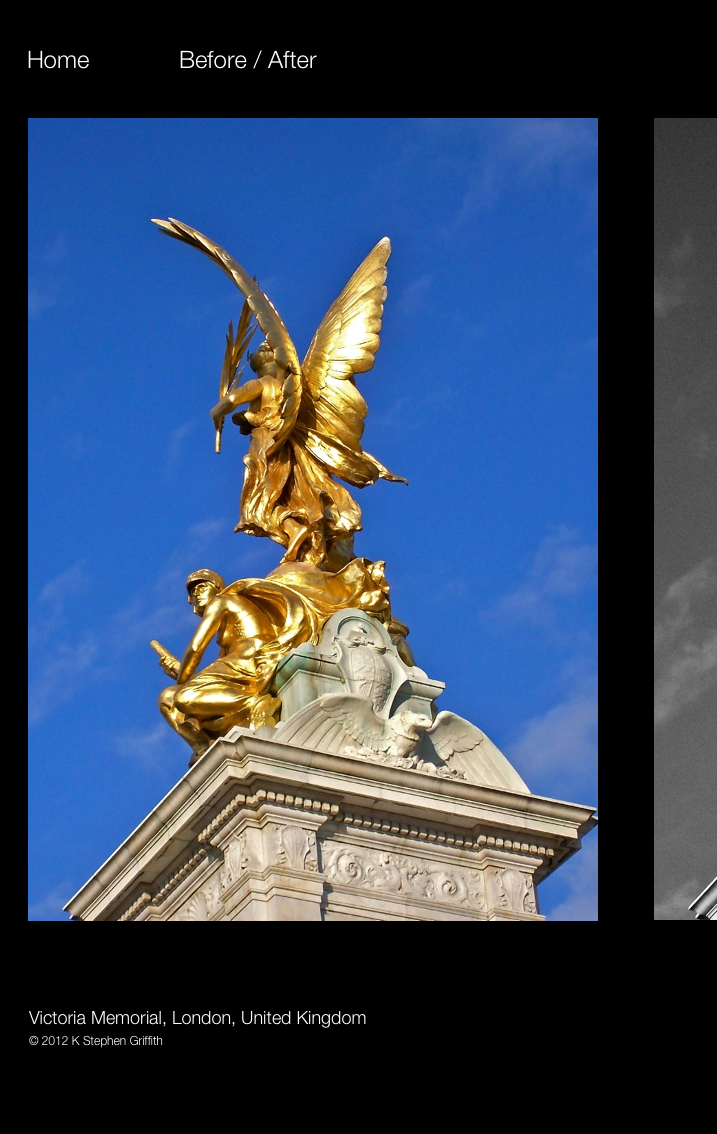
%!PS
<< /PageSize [717 1134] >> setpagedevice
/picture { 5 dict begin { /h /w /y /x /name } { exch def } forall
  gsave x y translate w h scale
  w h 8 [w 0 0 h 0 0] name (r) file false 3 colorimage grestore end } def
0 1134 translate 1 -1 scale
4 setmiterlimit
0 setgray
0 0 717 1134 rectfill
(img1.rgb) 28 50 61 19 picture
(img2.rgb) 180 50 137 19 picture
(img3.rgb) 28 118 570 803 picture
(img4.rgb) 654 118 63 802 picture
(img5.rgb) 29 1011 337 37 picture
showpage
